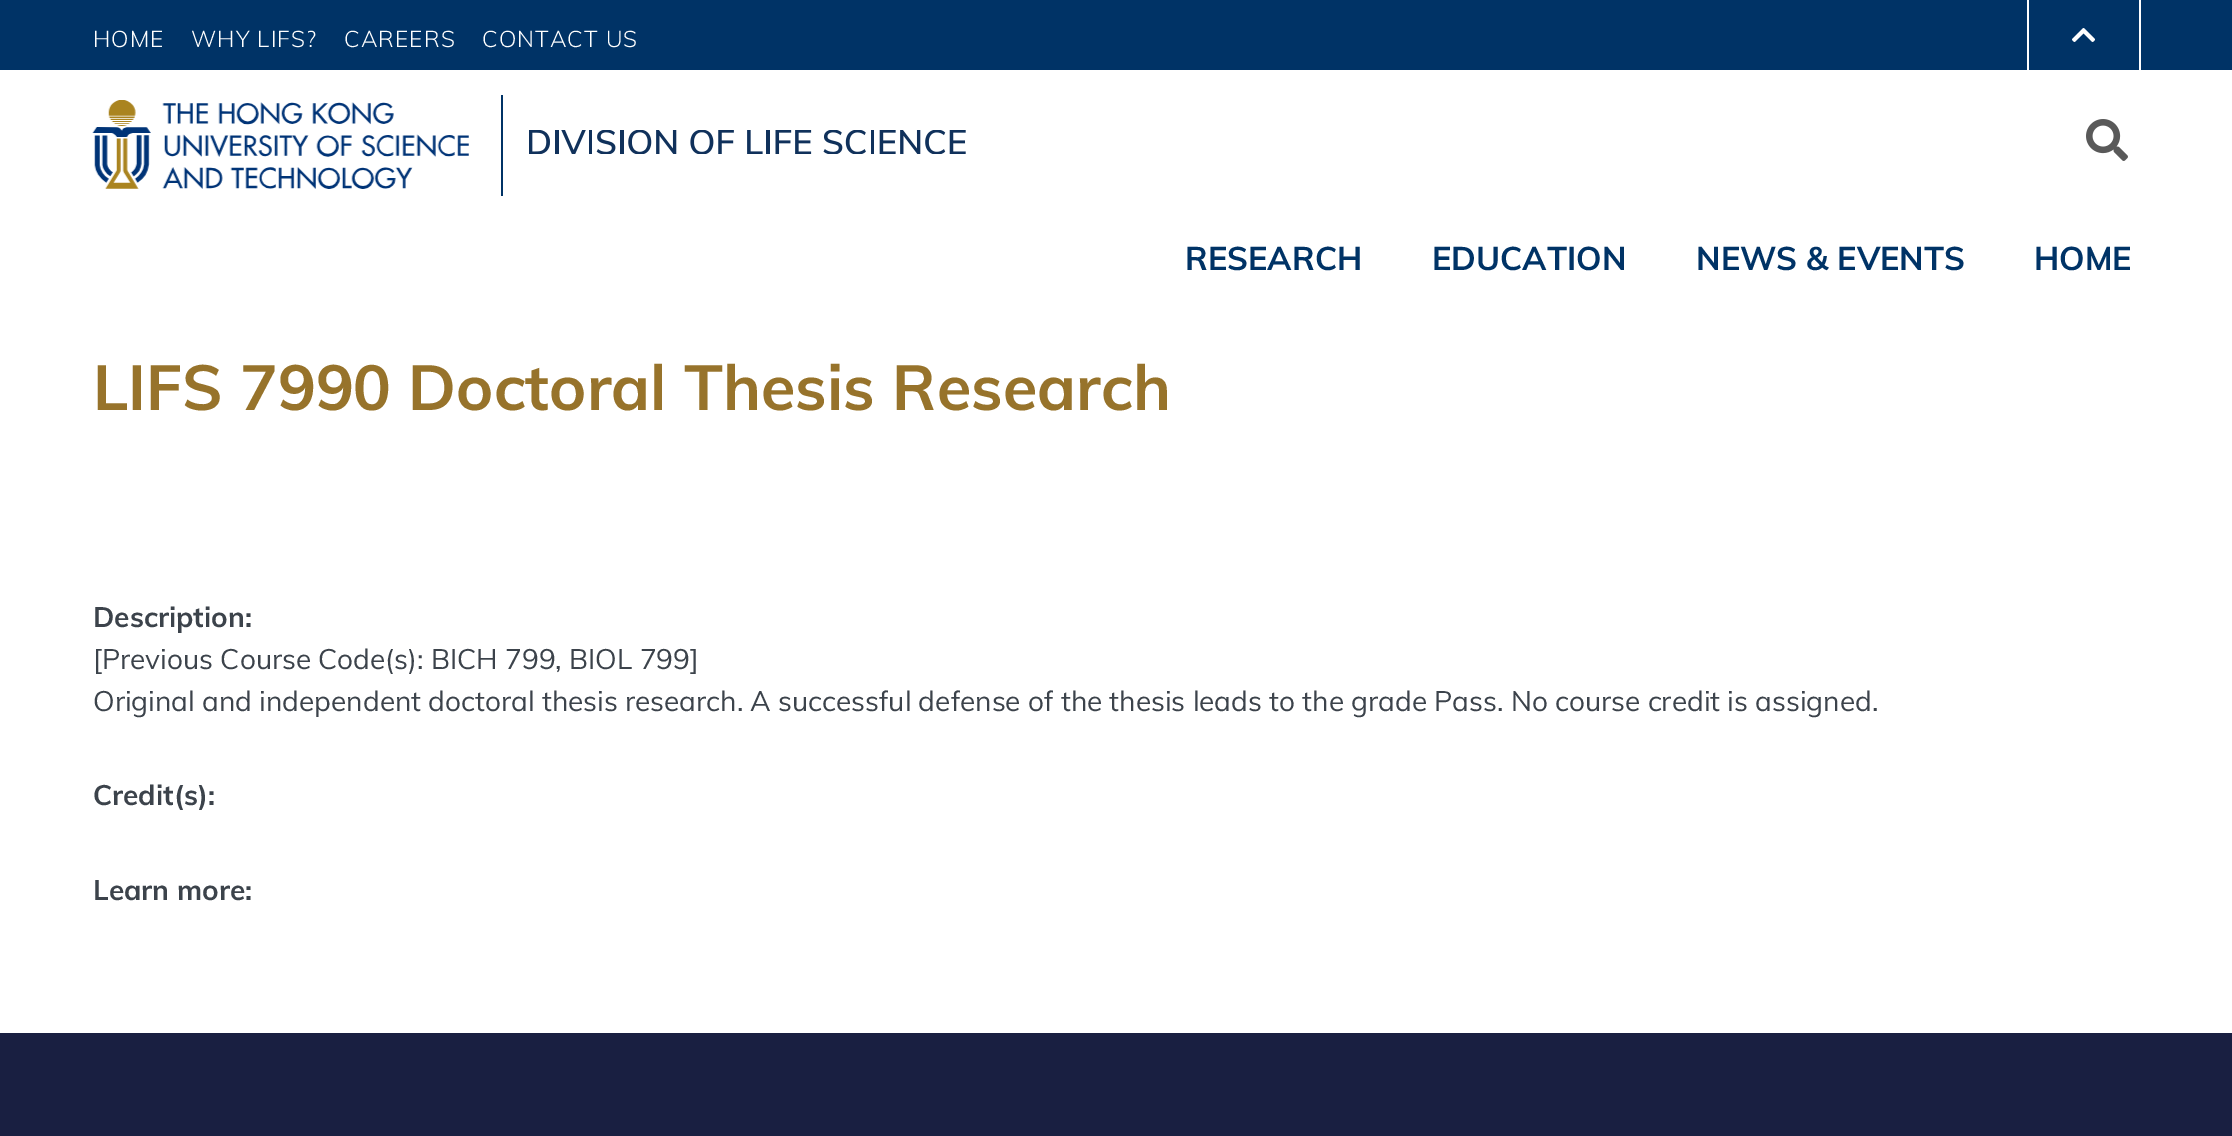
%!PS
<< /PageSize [2232 1136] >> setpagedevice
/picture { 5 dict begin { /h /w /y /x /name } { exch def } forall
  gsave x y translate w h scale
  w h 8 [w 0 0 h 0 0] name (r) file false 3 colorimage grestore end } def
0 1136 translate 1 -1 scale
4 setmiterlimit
1 setgray
0 0 2232 1136 rectfill
0 0.2 0.4 setrgbcolor
0 0 2232 70 rectfill
/Muli-Light [22.75 0 0 -22.75 0 0] selectfont
1 setgray
93 47 moveto 1.1 0 (HOME) ashow
191 47 moveto 1.1 0 (WHY LIFS?) ashow
344 47 moveto 1.1 0 (CAREERS) ashow
482 47 moveto 1.1 0 (CONTACT US) ashow
2139 0 2 70 rectfill
2027 0 2 70 rectfill
(img1.rgb) 2072 28 23 14 picture
0 0.2 0.4 setrgbcolor
501 95 2 101 rectfill
(img2.rgb) 92 100 377 89 picture
(img3.rgb) 529 130 437 24 picture
(img4.rgb) 2086 119 42 42 picture
/Muli-Bold [32.5 0 0 -32.5 0 0] selectfont
1185 270 moveto (RESEARCH) show
1432 270 moveto (EDUCATION) show
1696 270 moveto (NEWS & EVENTS) show
2034 270 moveto (HOME) show
/Muli-Bold [63 0 0 -63 0 0] selectfont
0.592 0.451 0.169 setrgbcolor
93 410 moveto (LIFS 7990 Doctoral Thesis Research) show
/Muli-Bold [28 0 0 -28 0 0] selectfont
0.235 0.263 0.294 setrgbcolor
93 627 moveto (Description:) show
/Muli-Regular [28 0 0 -28 0 0] selectfont
93 669 moveto ([Previous Course Code\(s\): BICH 799, BIOL 799]) show
93 711 moveto (Original and independent doctoral thesis research. A successful defense of the thesis leads to the grade Pass. No course credit is assigned.) show
/Muli-Bold [28 0 0 -28 0 0] selectfont
93 805 moveto (Credit\(s\):) show
93 900 moveto (Learn more:) show
0.098 0.122 0.255 setrgbcolor
0 1033 2232 103 rectfill
showpage
